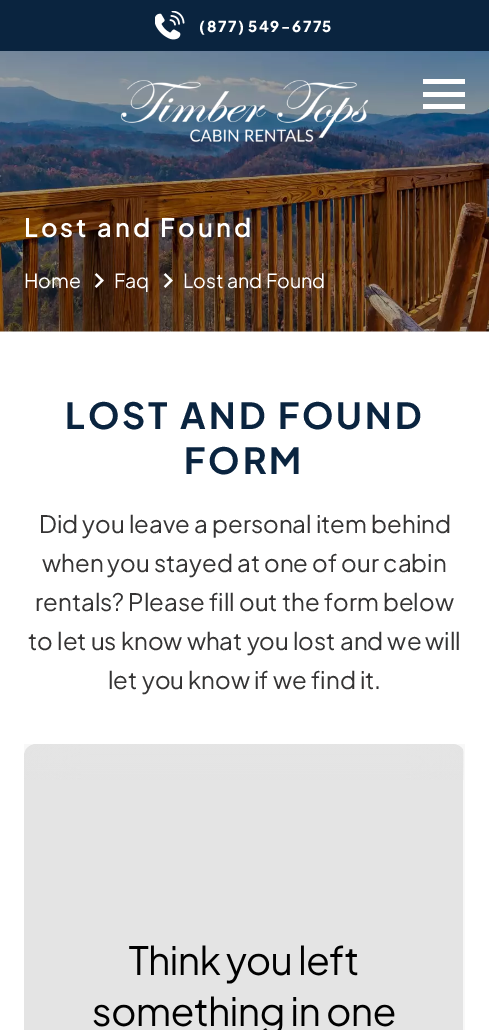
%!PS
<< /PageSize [489 1030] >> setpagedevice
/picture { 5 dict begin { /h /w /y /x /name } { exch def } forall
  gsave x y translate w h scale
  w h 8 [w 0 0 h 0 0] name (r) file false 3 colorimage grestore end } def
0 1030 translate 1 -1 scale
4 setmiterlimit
1 setgray
0 0 489 1030 rectfill
0.039 0.141 0.247 setrgbcolor
0 0 489 51 rectfill
(img1.rgb) 155 11 30 29 picture
/PlusJakartaSans-ExtraBold [15 0 0 -15 0 0] selectfont
1 setgray
199 32 moveto -1 0 32 1.5 0 (\(877\) 549-6775) awidthshow
(img3.rgb) 0 51 489 281 picture
(img2.rgb) 120 80 249 62 picture
423 79 42 5 rectfill
423 92 42 5 rectfill
423 104 42 5 rectfill
/PlusJakartaSans-SemiBold [25.5 0 0 -25.5 0 0] selectfont
24 237 moveto 3 0 (Lost and Found) ashow
/PlusJakartaSans-Regular [19.5 0 0 -19.5 0 0] selectfont
24 288 moveto (Home) show
(img4.rgb) 94 273 10 15 picture
114 288 moveto (Faq) show
(img5.rgb) 163 273 10 15 picture
183 288 moveto (Lost and Found) show
/PlusJakartaSans-Bold [36 0 0 -36 0 0] selectfont
0.039 0.141 0.247 setrgbcolor
65 429 moveto 3 0 (LOST AND FOUND) ashow
184 474 moveto 3 0 (FORM) ashow
/PlusJakartaSans-Regular [24 0 0 -24 0 0] selectfont
0.208 0.204 0.204 setrgbcolor
39 533 moveto (Did you leave a personal item behind) show
42 572 moveto (when you stayed at one of our cabin) show
35 611 moveto (rentals? Please fill out the form below) show
28 650 moveto (to let us know what you lost and we will) show
108 689 moveto (let you know if we find it.) show
0.973 setgray
24 744 441 286 rectfill
(img6.rgb) 24 744 440 286 picture
showpage
